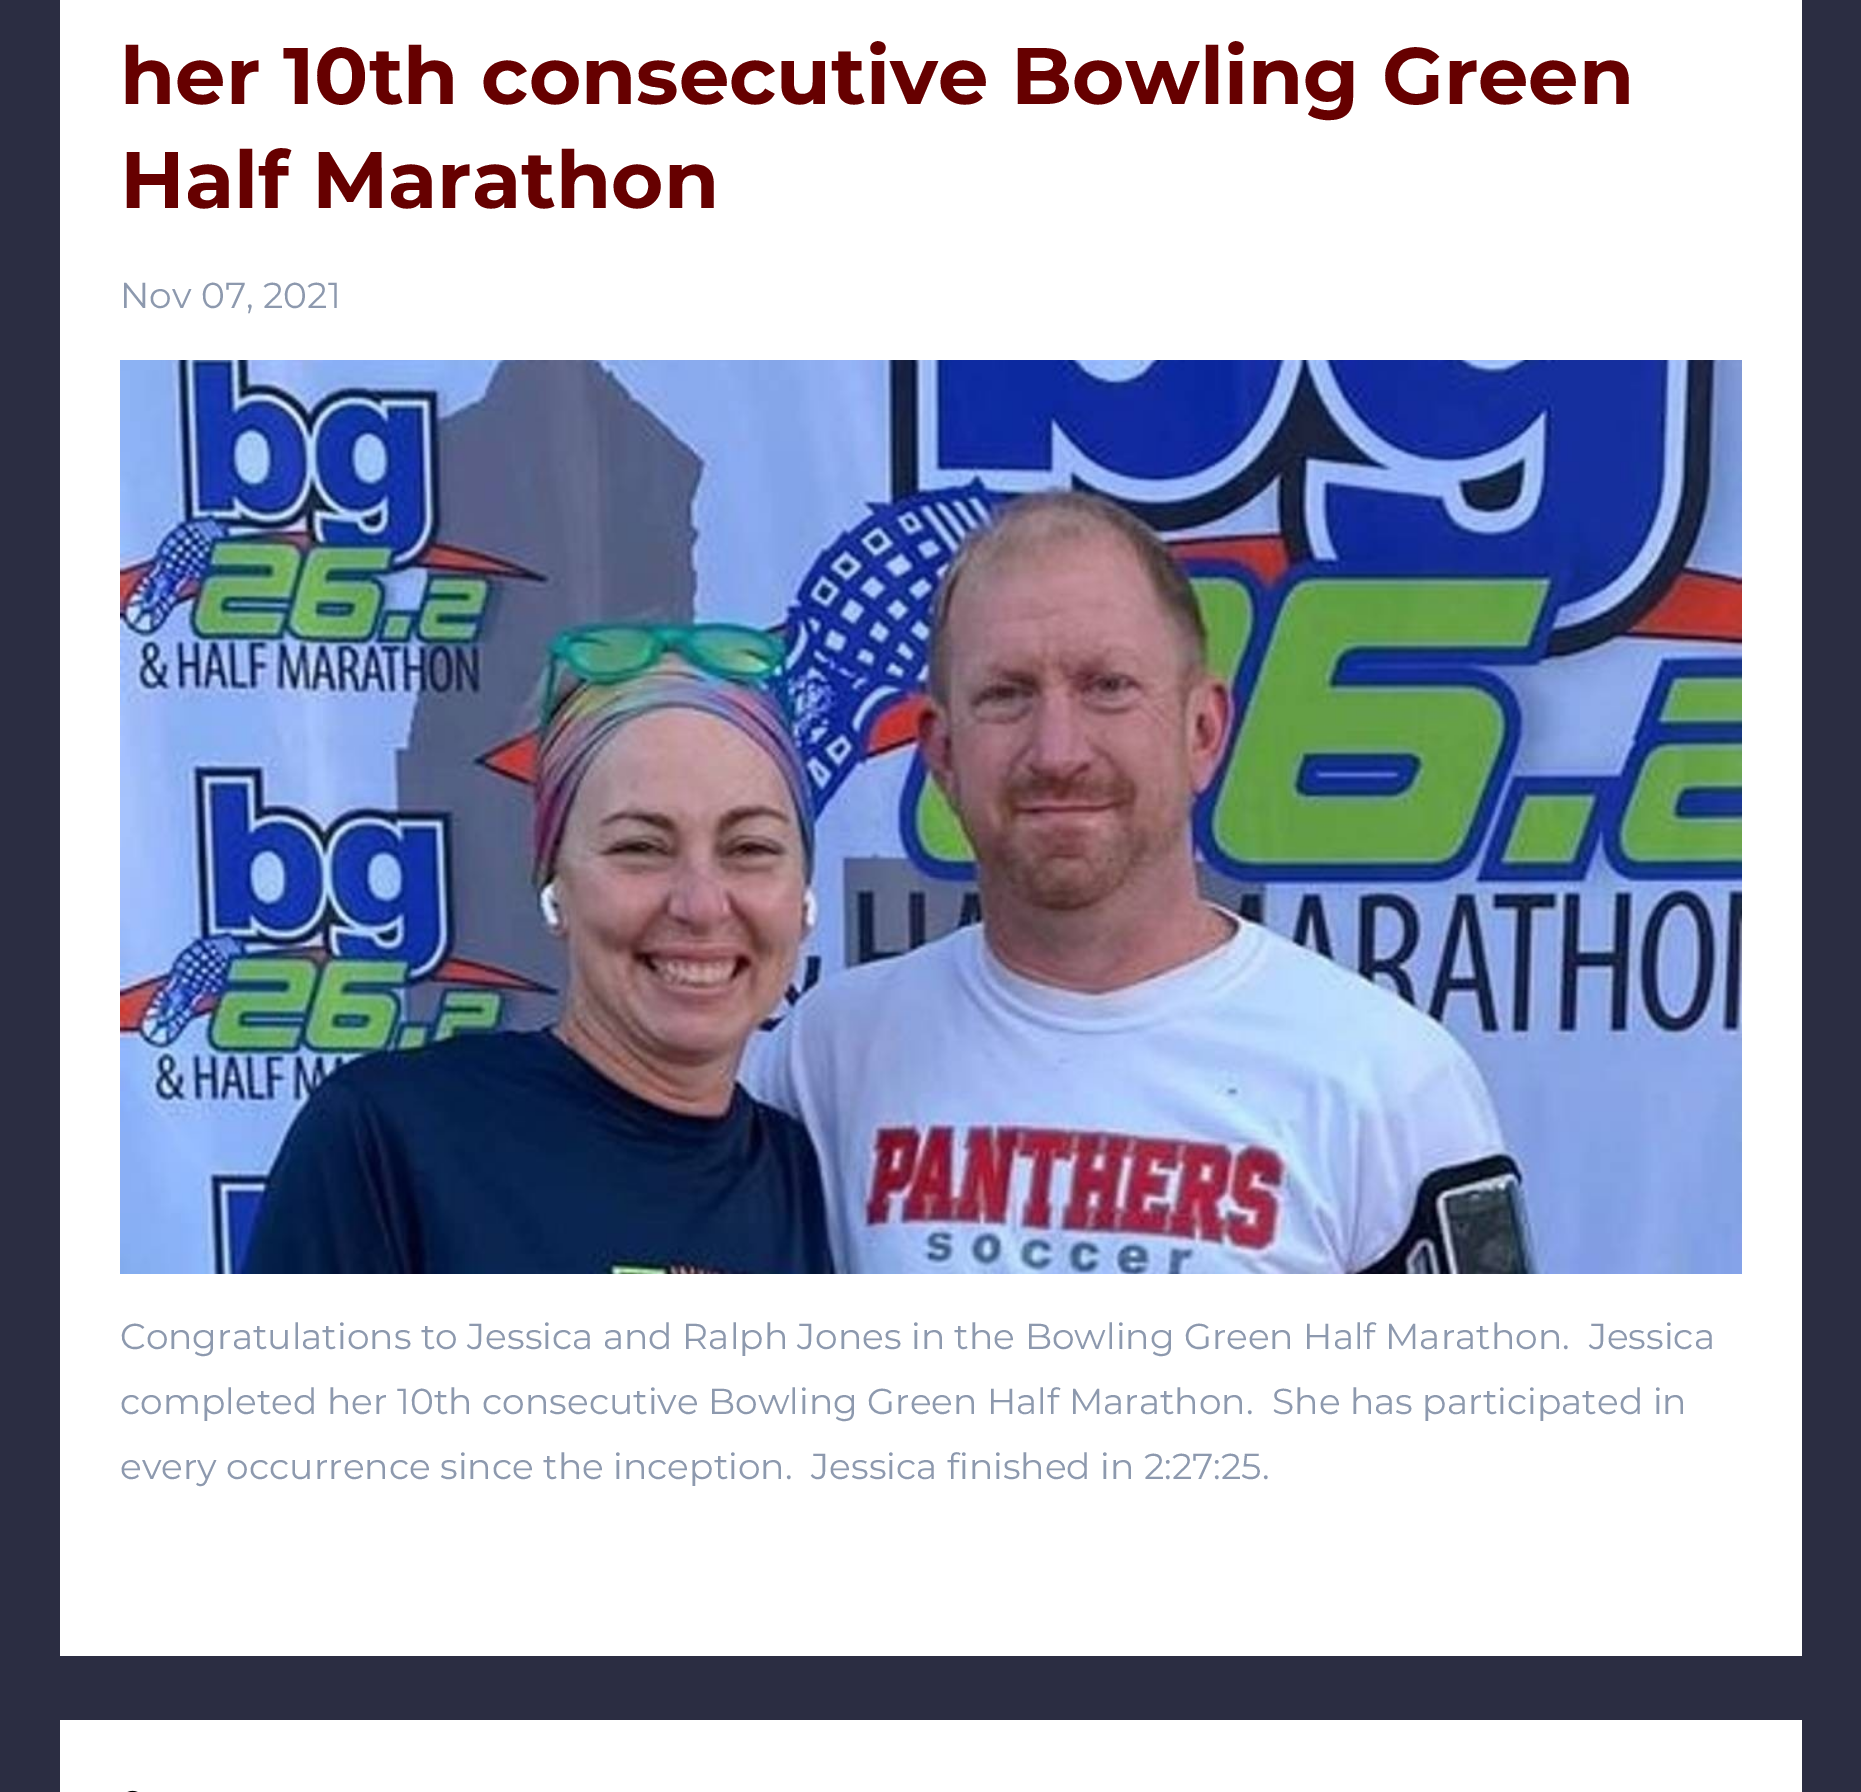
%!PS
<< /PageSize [1861 1792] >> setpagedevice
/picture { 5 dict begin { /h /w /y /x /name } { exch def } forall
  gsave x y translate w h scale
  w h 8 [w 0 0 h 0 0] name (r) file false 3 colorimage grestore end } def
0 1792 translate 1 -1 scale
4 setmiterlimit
0.169 0.176 0.259 setrgbcolor
0 0 1861 1792 rectfill
1 setgray
60 0 1742 1656 rectfill
/Montserrat-Bold [80 0 0 -80 0 0] selectfont
0.4 0 0 setrgbcolor
120 104 moveto (her 10th consecutive Bowling Green) show
120 208 moveto (Half Marathon) show
/Montserrat-Regular [36 0 0 -36 0 0] selectfont
0.553 0.6 0.682 setrgbcolor
120 308 moveto (Nov 07, 2021) show
(img1.rgb) 120 360 1622 914 picture
120 1349 moveto (Congratulations to Jessica and Ralph Jones in the Bowling Green Half Marathon.  Jessica) show
120 1414 moveto (completed her 10th consecutive Bowling Green Half Marathon.  She has participated in) show
120 1479 moveto (every occurrence since the inception.  Jessica finished in 2:27:25.) show
1 setgray
60 1720 1742 72 rectfill
(img2.rgb) 127 1790 11 2 picture
showpage
